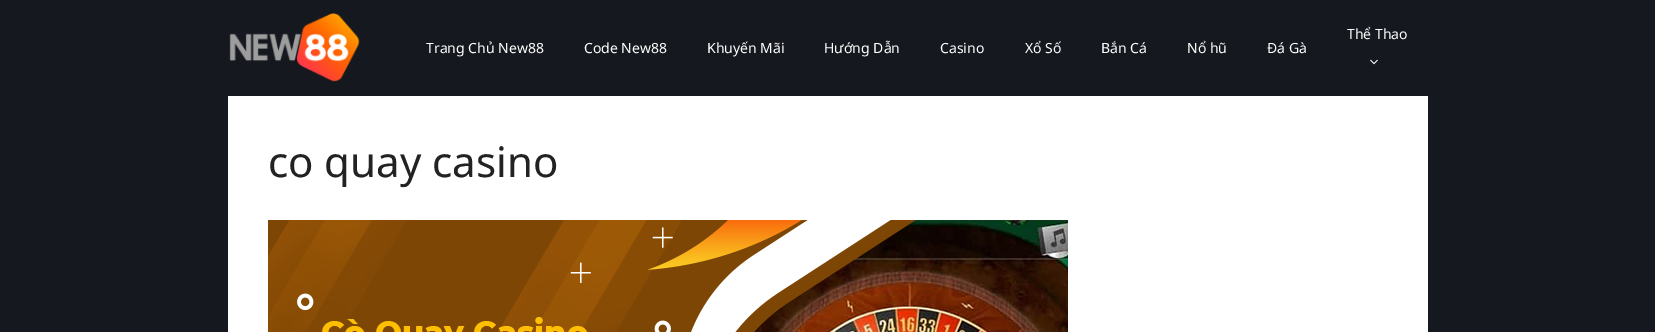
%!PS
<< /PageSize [1655 332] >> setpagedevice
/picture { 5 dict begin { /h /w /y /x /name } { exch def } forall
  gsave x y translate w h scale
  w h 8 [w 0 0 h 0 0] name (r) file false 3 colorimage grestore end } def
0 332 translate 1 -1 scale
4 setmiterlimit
0.082 0.094 0.122 setrgbcolor
0 0 1655 332 rectfill
(img1.rgb) 229 13 131 69 picture
/NotoSans-Regular [14 0 0 -14 0 0] selectfont
1 setgray
1347 39 moveto (Thể Thao) show
(img2.rgb) 1370 59 8 6 picture
426 53 moveto (Trang Chủ New88) show
584 53 moveto (Code New88) show
707 53 moveto (Khuyến Mãi) show
824 53 moveto (Hướng Dẫn) show
940 53 moveto (Casino) show
1025 53 moveto (Xổ Số) show
1101 53 moveto (Bắn Cá) show
1187 53 moveto (Nổ hũ) show
1267 53 moveto (Đá Gà) show
228 96 1200 236 rectfill
/NotoSans-Regular [42 0 0 -42 0 0] selectfont
0.133 setgray
268 177 moveto (co quay casino) show
(img3.rgb) 268 220 800 112 picture
showpage
